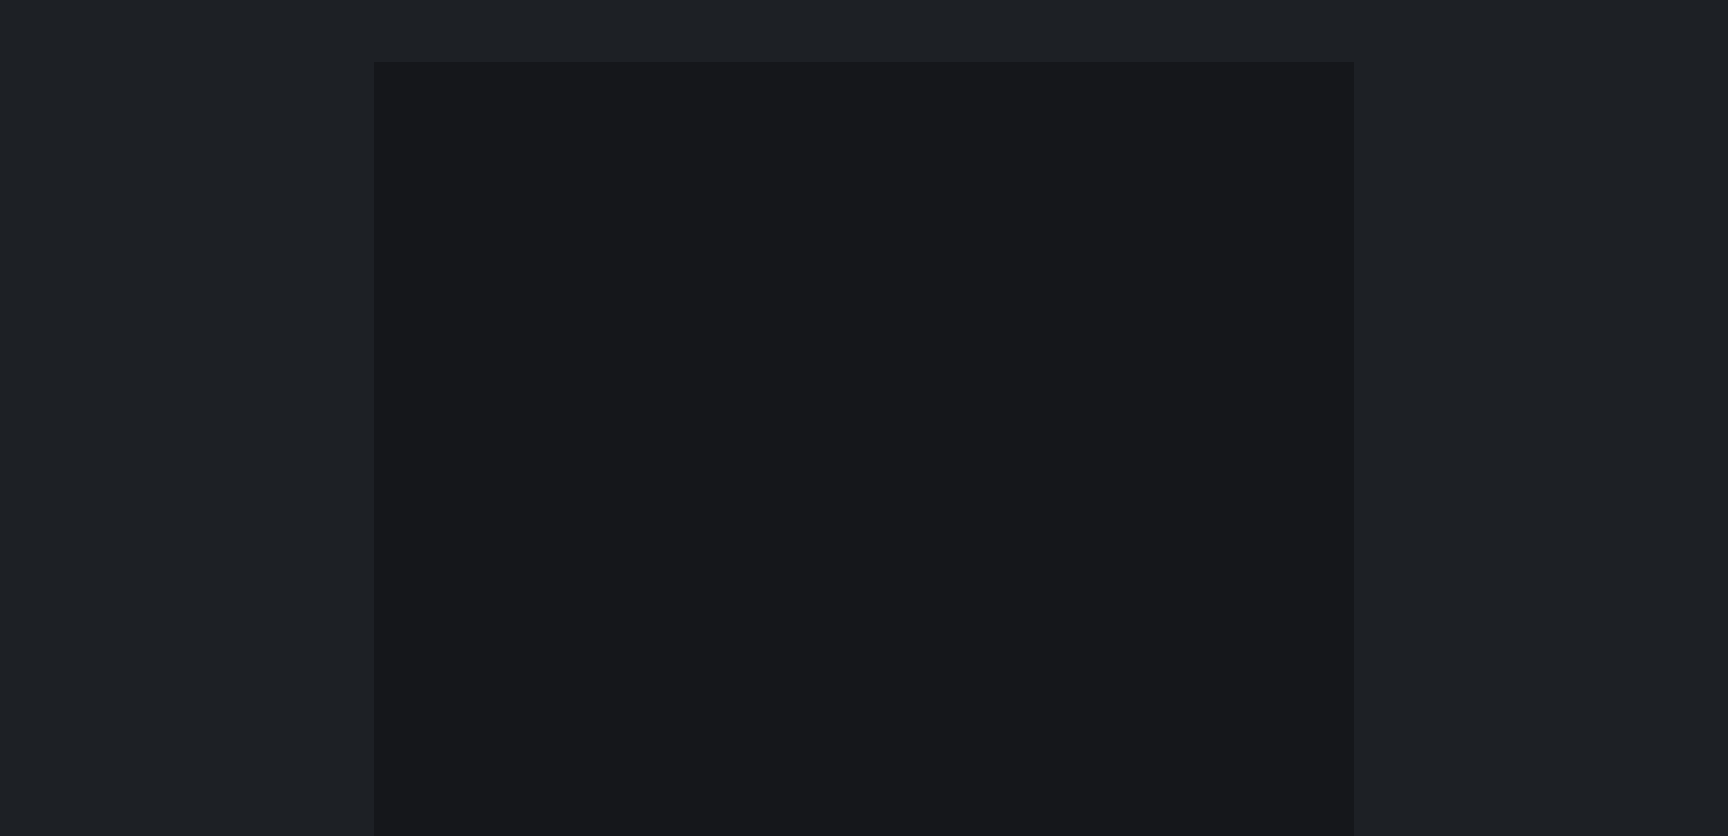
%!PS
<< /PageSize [1728 836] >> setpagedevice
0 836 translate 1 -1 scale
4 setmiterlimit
0.114 0.125 0.145 setrgbcolor
0 0 1728 836 rectfill
0.082 0.09 0.106 setrgbcolor
374 62 980 774 rectfill
showpage
